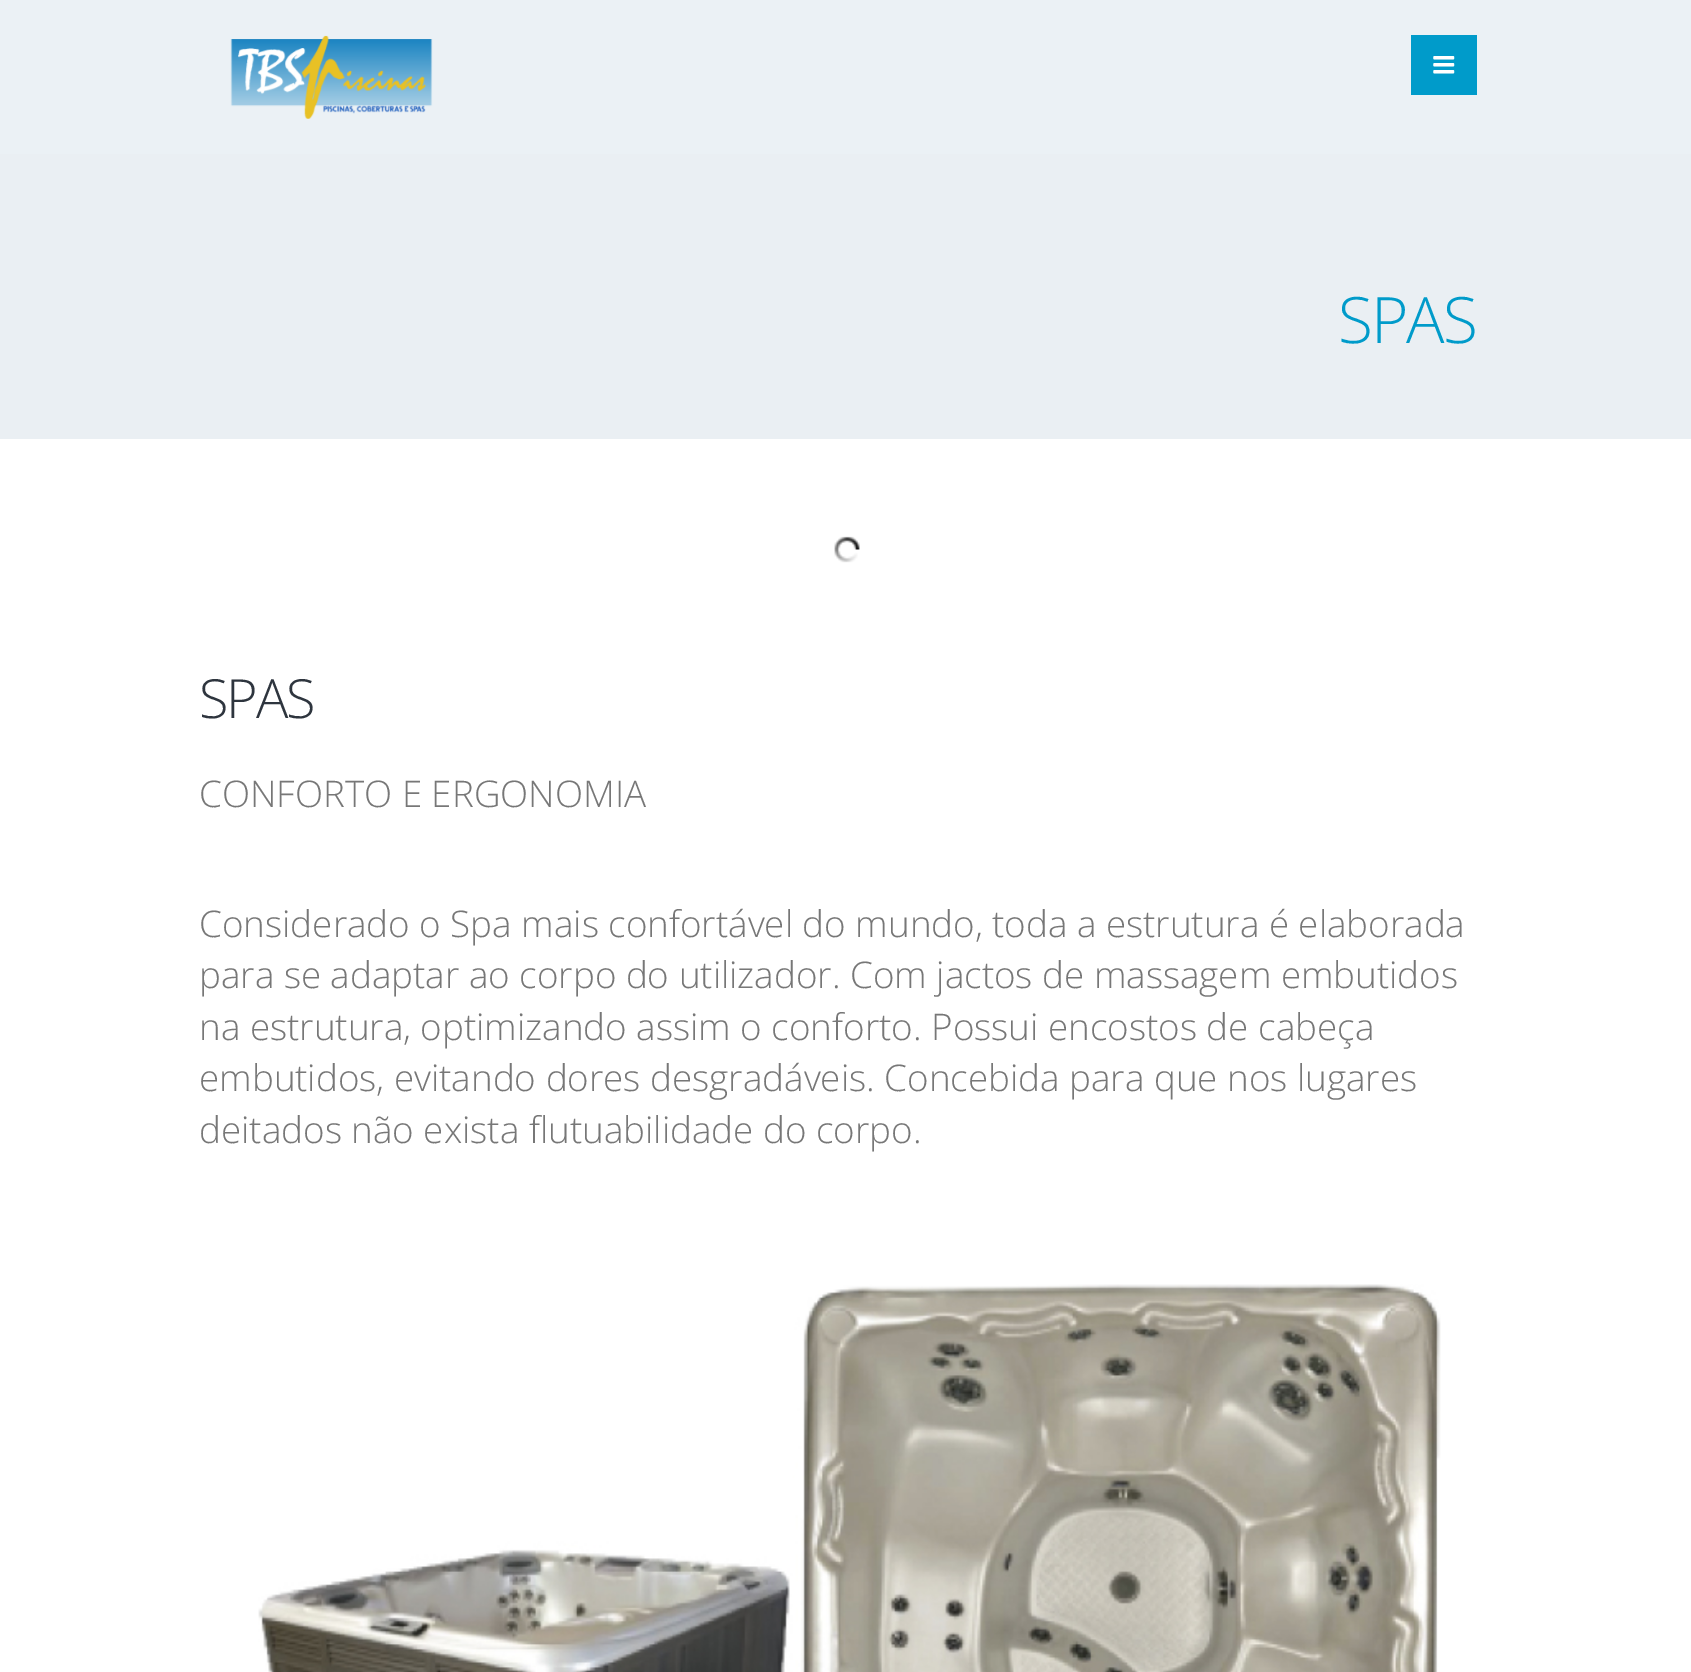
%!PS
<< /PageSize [1691 1672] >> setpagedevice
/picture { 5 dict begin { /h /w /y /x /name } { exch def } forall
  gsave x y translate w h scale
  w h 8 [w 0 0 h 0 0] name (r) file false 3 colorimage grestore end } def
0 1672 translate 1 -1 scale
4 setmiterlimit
1 setgray
0 0 1691 1672 rectfill
0.922 0.945 0.961 setrgbcolor
0 0 1691 154 rectfill
(img1.rgb) 230 35 203 84 picture
0 0.608 0.792 setrgbcolor
1411 35 66 60 rectfill
(img2.rgb) 1433 56 22 18 picture
0.918 0.937 0.953 setrgbcolor
0 154 1691 285 rectfill
/OpenSans-Light [64 0 0 -64 0 0] selectfont
0 0.608 0.792 setrgbcolor
1338 343 moveto -2 0 (SPAS) ashow
(img3.rgb) 834 536 26 27 picture
/OpenSans-Light [54 0 0 -54 0 0] selectfont
0.18 0.208 0.243 setrgbcolor
199 718 moveto -2 0 (SPAS) ashow
/OpenSans-Light [36.75 0 0 -36.75 0 0] selectfont
0.467 setgray
199 807 moveto (CONFORTO E ERGONOMIA) show
199 937 moveto (Considerado o Spa mais confortável do mundo, toda a estrutura é elaborada) show
199 988 moveto (para se adaptar ao corpo do utilizador. Com jactos de massagem embutidos) show
199 1040 moveto (na estrutura, optimizando assim o conforto. Possui encostos de cabeça) show
199 1091 moveto (embutidos, evitando dores desgradáveis. Concebida para que nos lugares) show
199 1143 moveto (deitados não exista flutuabilidade do corpo.) show
(img4.rgb) 258 1284 1183 388 picture
showpage
